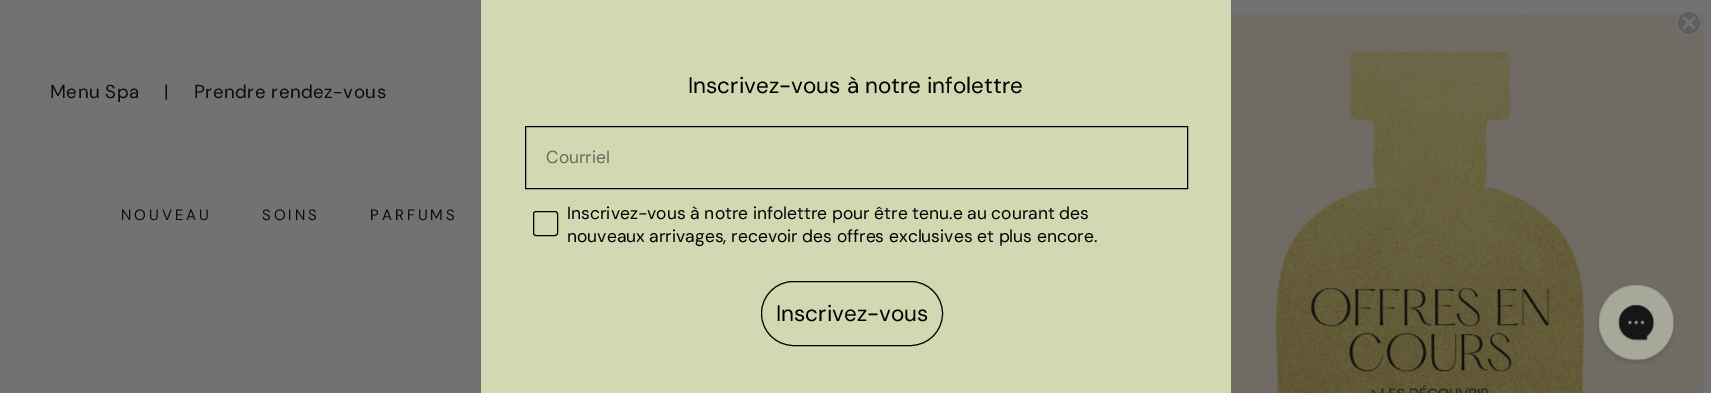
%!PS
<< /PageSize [1711 393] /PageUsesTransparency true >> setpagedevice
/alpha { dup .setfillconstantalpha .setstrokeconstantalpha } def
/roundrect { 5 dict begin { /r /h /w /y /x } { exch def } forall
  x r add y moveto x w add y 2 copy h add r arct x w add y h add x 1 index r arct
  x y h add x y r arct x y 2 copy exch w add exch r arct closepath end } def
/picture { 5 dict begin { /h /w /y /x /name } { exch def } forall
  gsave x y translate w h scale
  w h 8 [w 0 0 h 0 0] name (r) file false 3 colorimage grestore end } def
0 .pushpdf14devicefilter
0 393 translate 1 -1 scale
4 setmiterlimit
0.447 setgray
0 0 1711 393 rectfill
/DMSans-Regular [18.75 0 0 -18.75 0 0] selectfont
0.047 setgray
50 98 moveto 0.5 0 (Menu Spa) ashow
164 98 moveto 0.5 0 (|) ashow
194 98 moveto 0.5 0 (Prendre rendez-vous) ashow
/DMSans-Regular [15 0 0 -15 0 0] selectfont
121 220 moveto 3 0 (NOUVEAU) ashow
262 220 moveto 3 0 (SOINS) ashow
370 220 moveto 3 0 (PARFUMS) ashow
0.827 0.847 0.698 setrgbcolor
481 0 750 393 rectfill
/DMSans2-Regular [22.5 0 0 -22.5 0 0] selectfont
0 setgray
688 93 moveto (Inscrivez-vous à notre infolettre) show
525.5 126.5 662 62 rectstroke
/DMSans2-Regular [17.5 0 0 -17.5 0 0] selectfont
0.416 0.424 0.349 setrgbcolor
546 163 moveto (Courriel) show
0 setgray
533.5 211.5 24 24 2.5 roundrect stroke
567 219 moveto (Inscrivez-vous à notre infolettre pour être tenu.e au courant des) show
567 242 moveto (nouveaux arrivages, recevoir des offres exclusives et plus encore.) show
761.5 281.5 181 64 32 roundrect stroke
/DMSans2-Regular [22.5 0 0 -22.5 0 0] selectfont
776 321 moveto (Inscrivez-vous) show
(img1.rgb) 1231 13 473 380 picture
0.65 alpha
0.329 0.341 0.353 setrgbcolor
newpath 1689 23 12 0 360 arc closepath fill
gsave
1676 11 25 25 rectclip
1 alpha
0.447 setgray
1.2 setlinewidth
newpath 1689 23 12 0 360 arc closepath stroke
grestore
1 alpha
0.447 setgray
2.5 setlinewidth
1 setlinecap
1 setlinejoin
newpath 1684 18 moveto 1694 28 lineto 1684 28 moveto 1694 18 lineto closepath stroke
(img2.rgb) 1597 285 78 79 picture
.poppdf14devicefilter showpage
